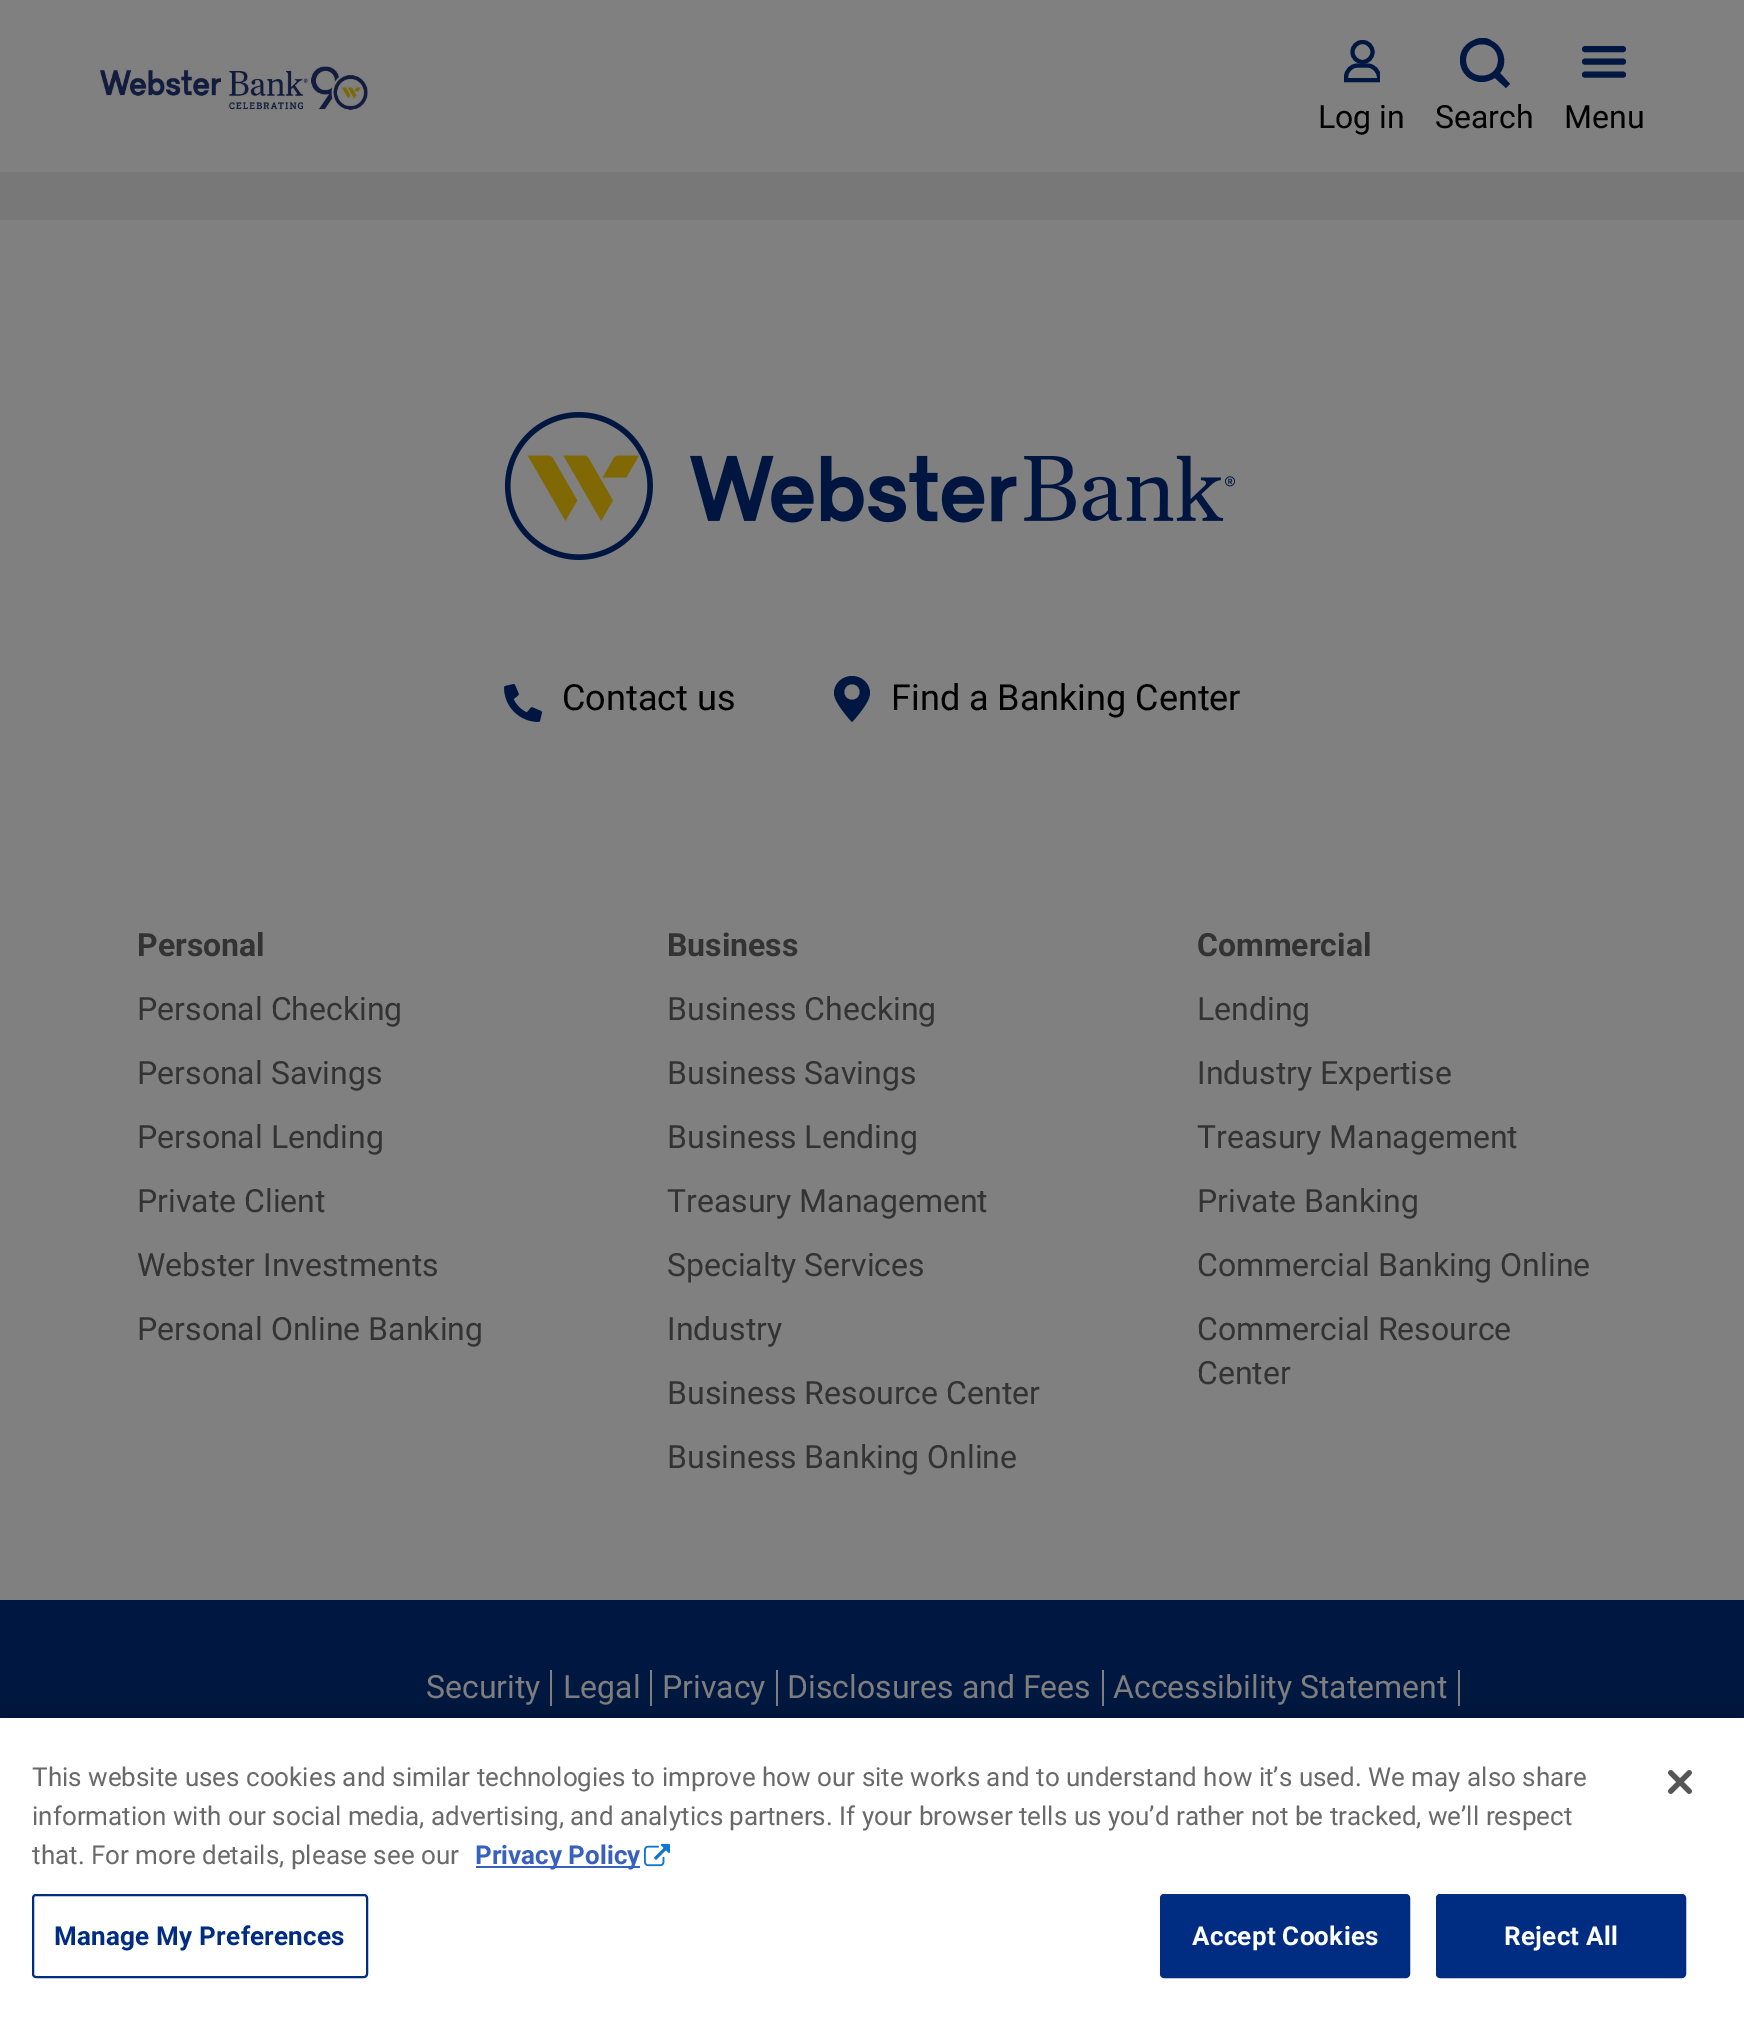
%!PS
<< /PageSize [1744 2017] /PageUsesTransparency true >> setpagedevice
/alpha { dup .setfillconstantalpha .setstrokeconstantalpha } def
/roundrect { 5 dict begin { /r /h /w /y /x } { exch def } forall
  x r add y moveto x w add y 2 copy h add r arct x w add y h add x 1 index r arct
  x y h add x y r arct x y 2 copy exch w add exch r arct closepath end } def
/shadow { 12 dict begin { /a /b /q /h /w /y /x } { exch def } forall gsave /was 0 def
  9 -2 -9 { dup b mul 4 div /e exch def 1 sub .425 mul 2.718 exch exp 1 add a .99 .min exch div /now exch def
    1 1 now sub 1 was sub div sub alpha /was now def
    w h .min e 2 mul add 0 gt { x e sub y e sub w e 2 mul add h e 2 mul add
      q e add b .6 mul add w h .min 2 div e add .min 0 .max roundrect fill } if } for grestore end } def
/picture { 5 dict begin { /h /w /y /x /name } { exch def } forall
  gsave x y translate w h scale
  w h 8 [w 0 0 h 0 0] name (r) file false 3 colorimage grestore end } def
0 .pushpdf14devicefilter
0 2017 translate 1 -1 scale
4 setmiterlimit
0.502 setgray
0 0 1744 2017 rectfill
(img1.rgb) 100 66 268 44 picture
0 0.09 0.255 setrgbcolor
4 setlinewidth
newpath 1362.5 52 10 0 360 arc closepath stroke
gsave
1344 40 36 44 rectclip
newpath 1357.5 65.5 moveto 1367.5 65.5 lineto 1373.5 65.5 1379 71 1379 77.5 curveto 1379 80 lineto 1346 80 lineto 1346 77.5 lineto 1346 71 1351 65.5 1357.5 65.5 curveto closepath stroke
grestore
/Roboto-Regular [32 0 0 -32 0 0] selectfont
0 setgray
1318 128 moveto (Log in) show
gsave
1460 38 50 50 rectclip
0 0.09 0.255 setrgbcolor
newpath 1510 84 moveto 1500 73 lineto 1508 63 1504 47 1492 41 curveto 1487 37 1480 37 1474 40 curveto 1451 49 1458 82 1482 82 curveto 1487 82 1491 80 1495 78 curveto 1506 88 lineto closepath 1466 60 moveto 1466 39 1498 39 1498 60 curveto 1498 81 1466 81 1466 60 curveto closepath fill
grestore
1435 128 moveto (Search) show
0 0.09 0.255 setrgbcolor
6 setlinewidth
1 setlinecap
1 setlinejoin
newpath 1585 61.5 moveto 1623 61.5 lineto 1585 49 moveto 1623 49 lineto 1585 74.5 moveto 1623 74.5 lineto stroke
0 setgray
1564 128 moveto (Menu) show
0.471 setgray
0 172 1744 48 rectfill
(img2.rgb) 504 412 731 148 picture
(img3.rgb) 504 684 38 38 picture
/Roboto-Regular [36 0 0 -36 0 0] selectfont
0 setgray
562 710 moveto (Contact us) show
891 710 moveto (Find a Banking Center) show
0 0.09 0.255 setrgbcolor
newpath 852 676 moveto 862 676 870 684 870 693 curveto 870 703 852 722 852 722 curveto 852 722 834 703 834 693 curveto 834 684 842 676 852 676 curveto closepath fill
0.502 setgray
newpath 852 692 7.5 0 360 arc closepath fill
/Roboto-Bold [32 0 0 -32 0 0] selectfont
0.2 setgray
137 956 moveto (Personal) show
/Roboto-Regular [32 0 0 -32 0 0] selectfont
137 1020 moveto (Personal Checking) show
137 1084 moveto (Personal Savings) show
137 1148 moveto (Personal Lending) show
137 1212 moveto (Private Client) show
137 1276 moveto (Webster Investments) show
137 1340 moveto (Personal Online Banking) show
/Roboto-Bold [32 0 0 -32 0 0] selectfont
667 956 moveto (Business) show
/Roboto-Regular [32 0 0 -32 0 0] selectfont
667 1020 moveto (Business Checking) show
667 1084 moveto (Business Savings) show
667 1148 moveto (Business Lending) show
667 1212 moveto (Treasury Management) show
667 1276 moveto (Specialty Services) show
667 1340 moveto (Industry) show
667 1404 moveto (Business Resource Center) show
667 1468 moveto (Business Banking Online) show
/Roboto-Bold [32 0 0 -32 0 0] selectfont
1197 956 moveto (Commercial) show
/Roboto-Regular [32 0 0 -32 0 0] selectfont
1197 1020 moveto (Lending) show
1197 1084 moveto (Industry Expertise) show
1197 1148 moveto (Treasury Management) show
1197 1212 moveto (Private Banking) show
1197 1276 moveto (Commercial Banking Online) show
1197 1340 moveto (Commercial Resource) show
1197 1384 moveto (Center) show
0 0.09 0.255 setrgbcolor
0 1600 1744 118 rectfill
0.502 setgray
550 1670 2 36 rectfill
426 1698 moveto (Security) show
650 1670 2 36 rectfill
563 1698 moveto (Legal) show
776 1670 2 36 rectfill
662 1698 moveto (Privacy) show
1102 1670 2 36 rectfill
787 1698 moveto (Disclosures and Fees) show
1458 1670 2 36 rectfill
1113 1698 moveto (Accessibility Statement) show
0 setgray
0 1718 1744 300 0 18 0.2 shadow
1 setgray
0 1718 1744 299 rectfill
/Roboto-Regular [26.02 0 0 -26.02 0 0] selectfont
0.412 setgray
32 1786 moveto (This website uses cookies and similar technologies to improve how our site works and to understand how it’s used. We may also share) show
32 1825 moveto (information with our social media, advertising, and analytics partners. If your browser tells us you’d rather not be tracked, we’ll respect) show
32 1864 moveto (that. For more details, please see our) show
0.22 0.376 0.745 setrgbcolor
476 1866 164 2 rectfill
/Roboto-Bold [26.02 0 0 -26.02 0 0] selectfont
475 1864 moveto (Privacy Policy) show
(img4.rgb) 644 1843 26 24 picture
0 0.176 0.51 setrgbcolor
2 setlinewidth
0 setlinecap
0 setlinejoin
33 1895 334 82 3 roundrect stroke
54 1945 moveto 0.25 0 (Manage My Preferences) ashow
1161 1895 248 82 3 roundrect gsave fill grestore
stroke
1 setgray
1192 1945 moveto 0.25 0 (Accept Cookies) ashow
0 0.176 0.51 setrgbcolor
1437 1895 248 82 3 roundrect gsave fill grestore
stroke
1 setgray
1504 1945 moveto 0.25 0 (Reject All) ashow
(img5.rgb) 1668 1770 24 24 picture
.poppdf14devicefilter showpage
